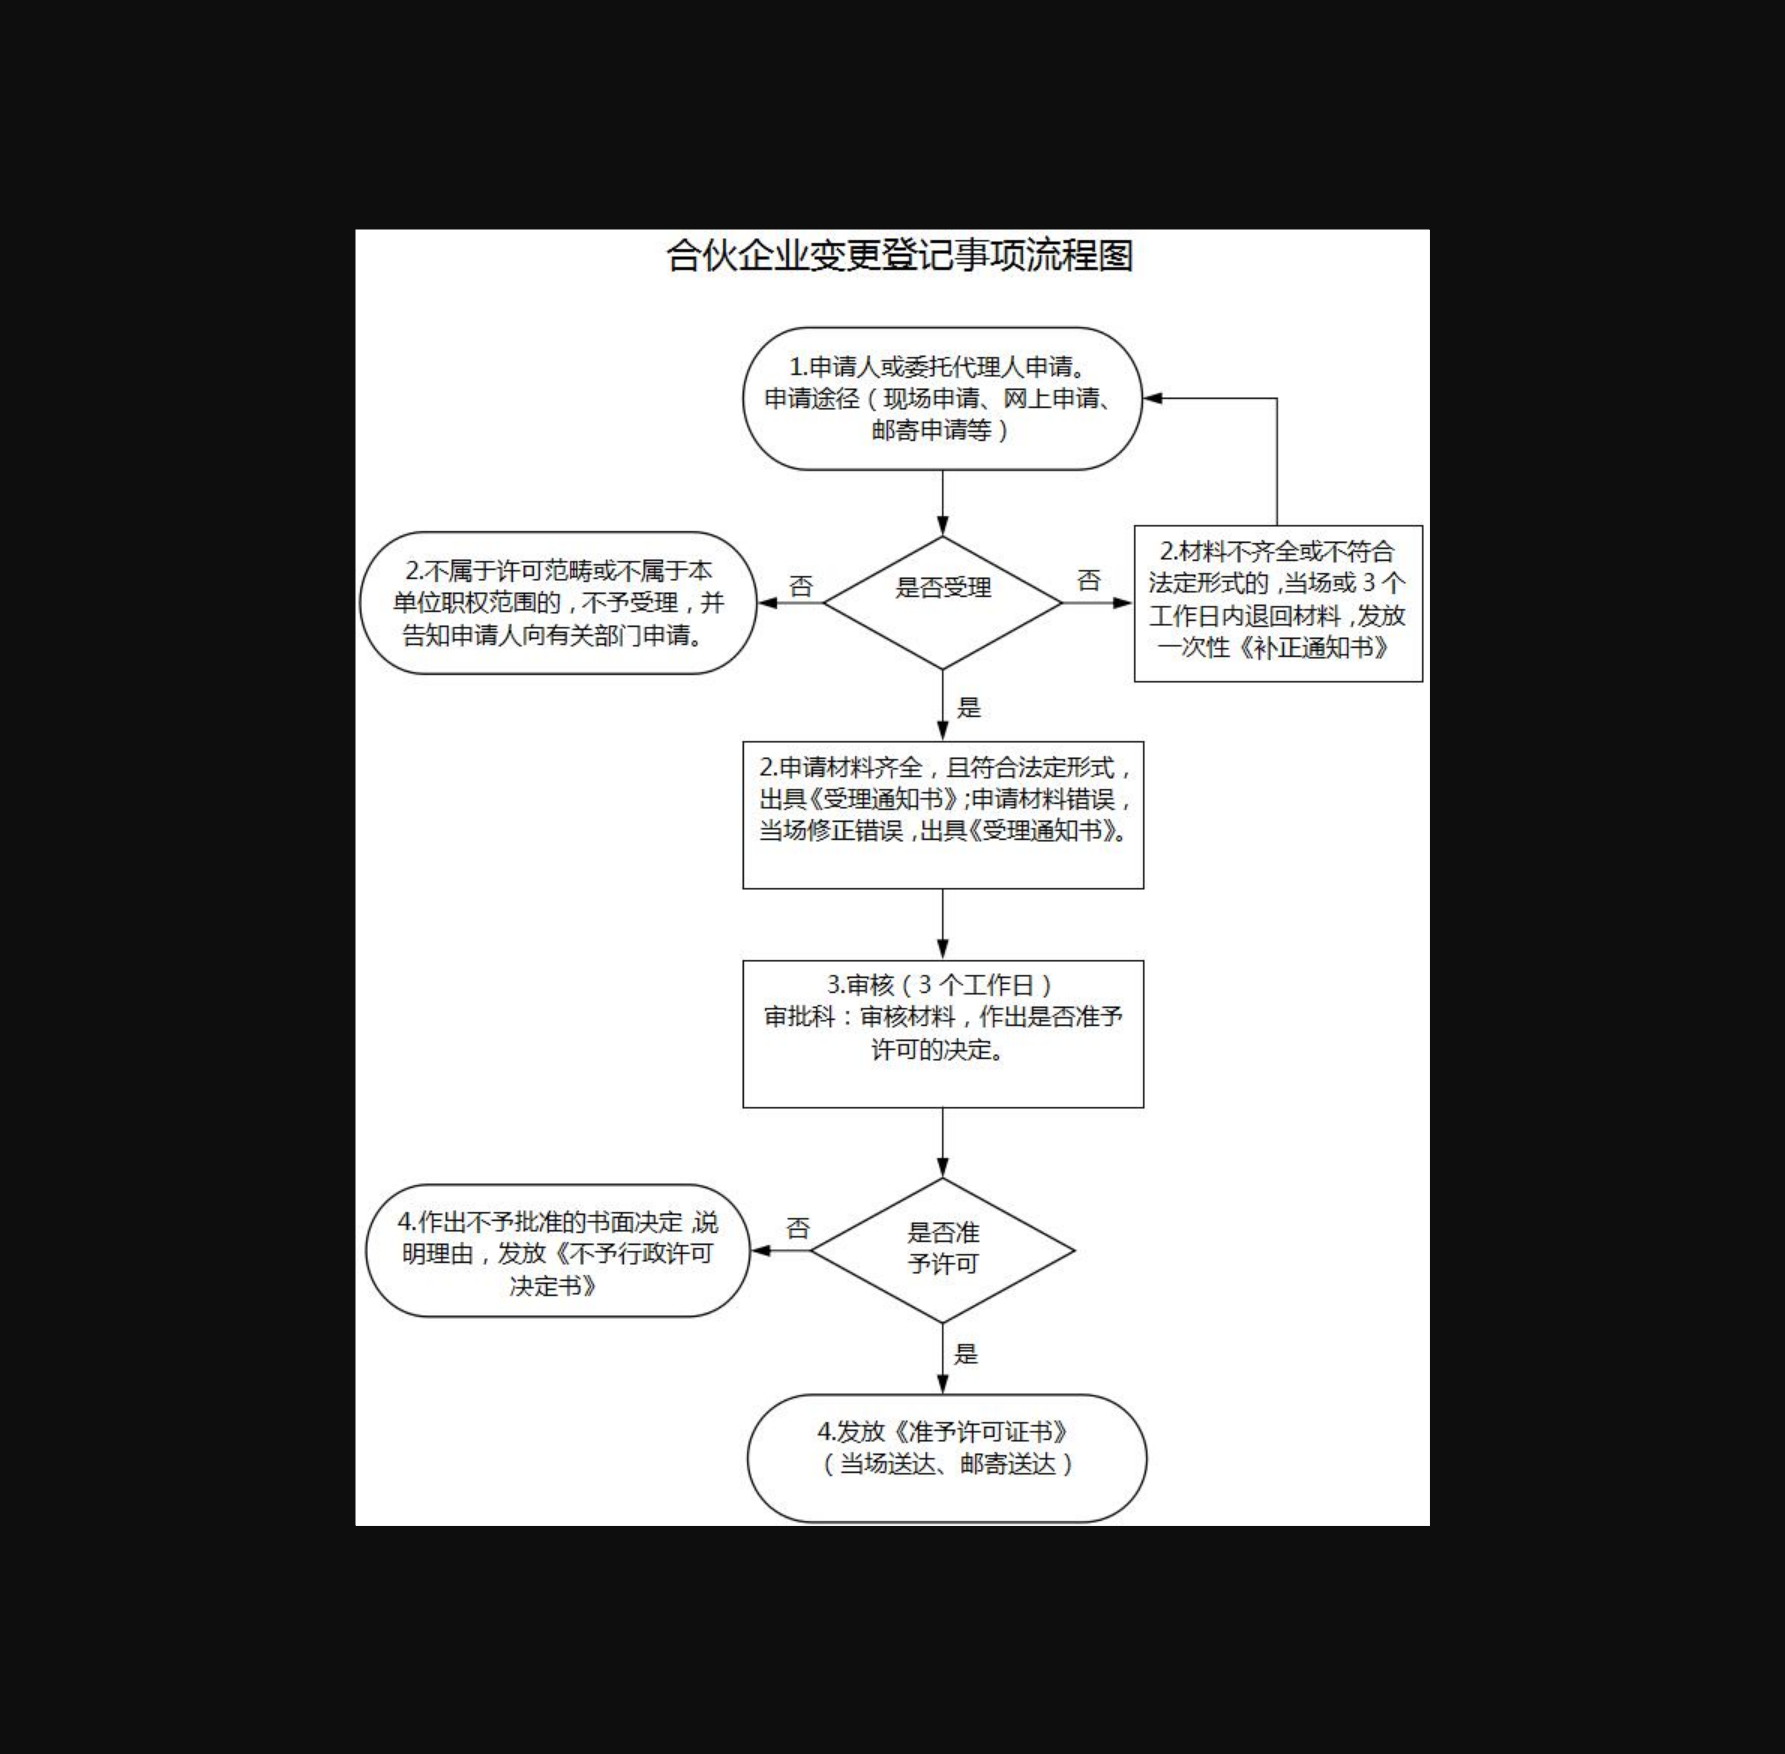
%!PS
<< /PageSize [1785 1754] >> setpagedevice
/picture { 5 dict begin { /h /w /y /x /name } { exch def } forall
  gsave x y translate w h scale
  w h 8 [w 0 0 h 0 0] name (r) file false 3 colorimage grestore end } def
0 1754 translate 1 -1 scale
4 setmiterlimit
0.055 setgray
0 0 1785 1754 rectfill
0.902 setgray
356 230 1074 1296 rectfill
(img1.rgb) 355 229 1075 1297 picture
showpage
